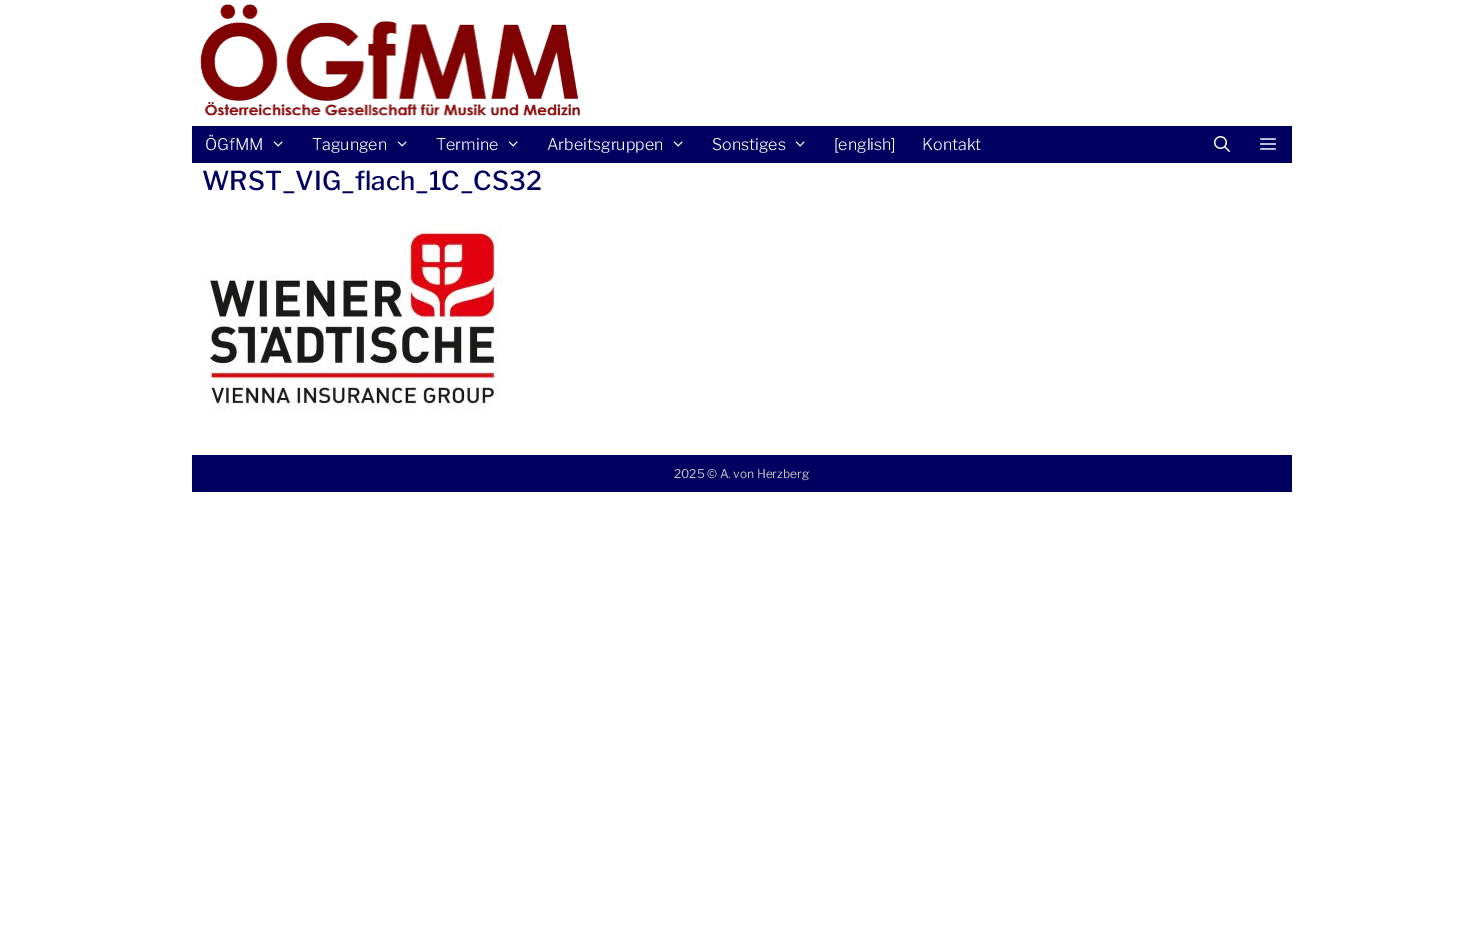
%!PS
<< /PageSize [1483 949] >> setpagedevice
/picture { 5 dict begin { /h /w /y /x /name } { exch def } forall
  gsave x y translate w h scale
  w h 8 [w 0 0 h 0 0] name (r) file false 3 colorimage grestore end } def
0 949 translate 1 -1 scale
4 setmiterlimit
1 setgray
0 0 1483 949 rectfill
(img1.rgb) 200 4 380 112 picture
0 0 0.376 setrgbcolor
192 126 1100 37 rectfill
/LibreFranklin-Light [16 0 0 -16 0 0] selectfont
1 setgray
205 150 moveto (ÖGfMM) show
(img2.rgb) 273 141 10 6 picture
312 150 moveto (Tagungen) show
(img2.rgb) 397 141 10 6 picture
436 150 moveto (Termine) show
(img2.rgb) 508 141 10 6 picture
547 150 moveto (Arbeitsgruppen) show
(img2.rgb) 673 141 10 6 picture
712 150 moveto (Sonstiges) show
(img2.rgb) 795 141 10 6 picture
834 150 moveto ([english]) show
922 150 moveto (Kontakt) show
(img3.rgb) 1214 136 16 16 picture
(img4.rgb) 1260 138 16 12 picture
/LibreFranklin-Medium [26 0 0 -26 0 0] selectfont
0 0 0.376 setrgbcolor
202 190 moveto (WRST_VIG_flach_1C_CS32) show
(img5.rgb) 202 226 300 184 picture
192 455 1100 37 rectfill
/LibreFranklin-Regular [12 0 0 -12 0 0] selectfont
0.776 setgray
674 478 moveto (2025 © A. von Herzberg) show
showpage
